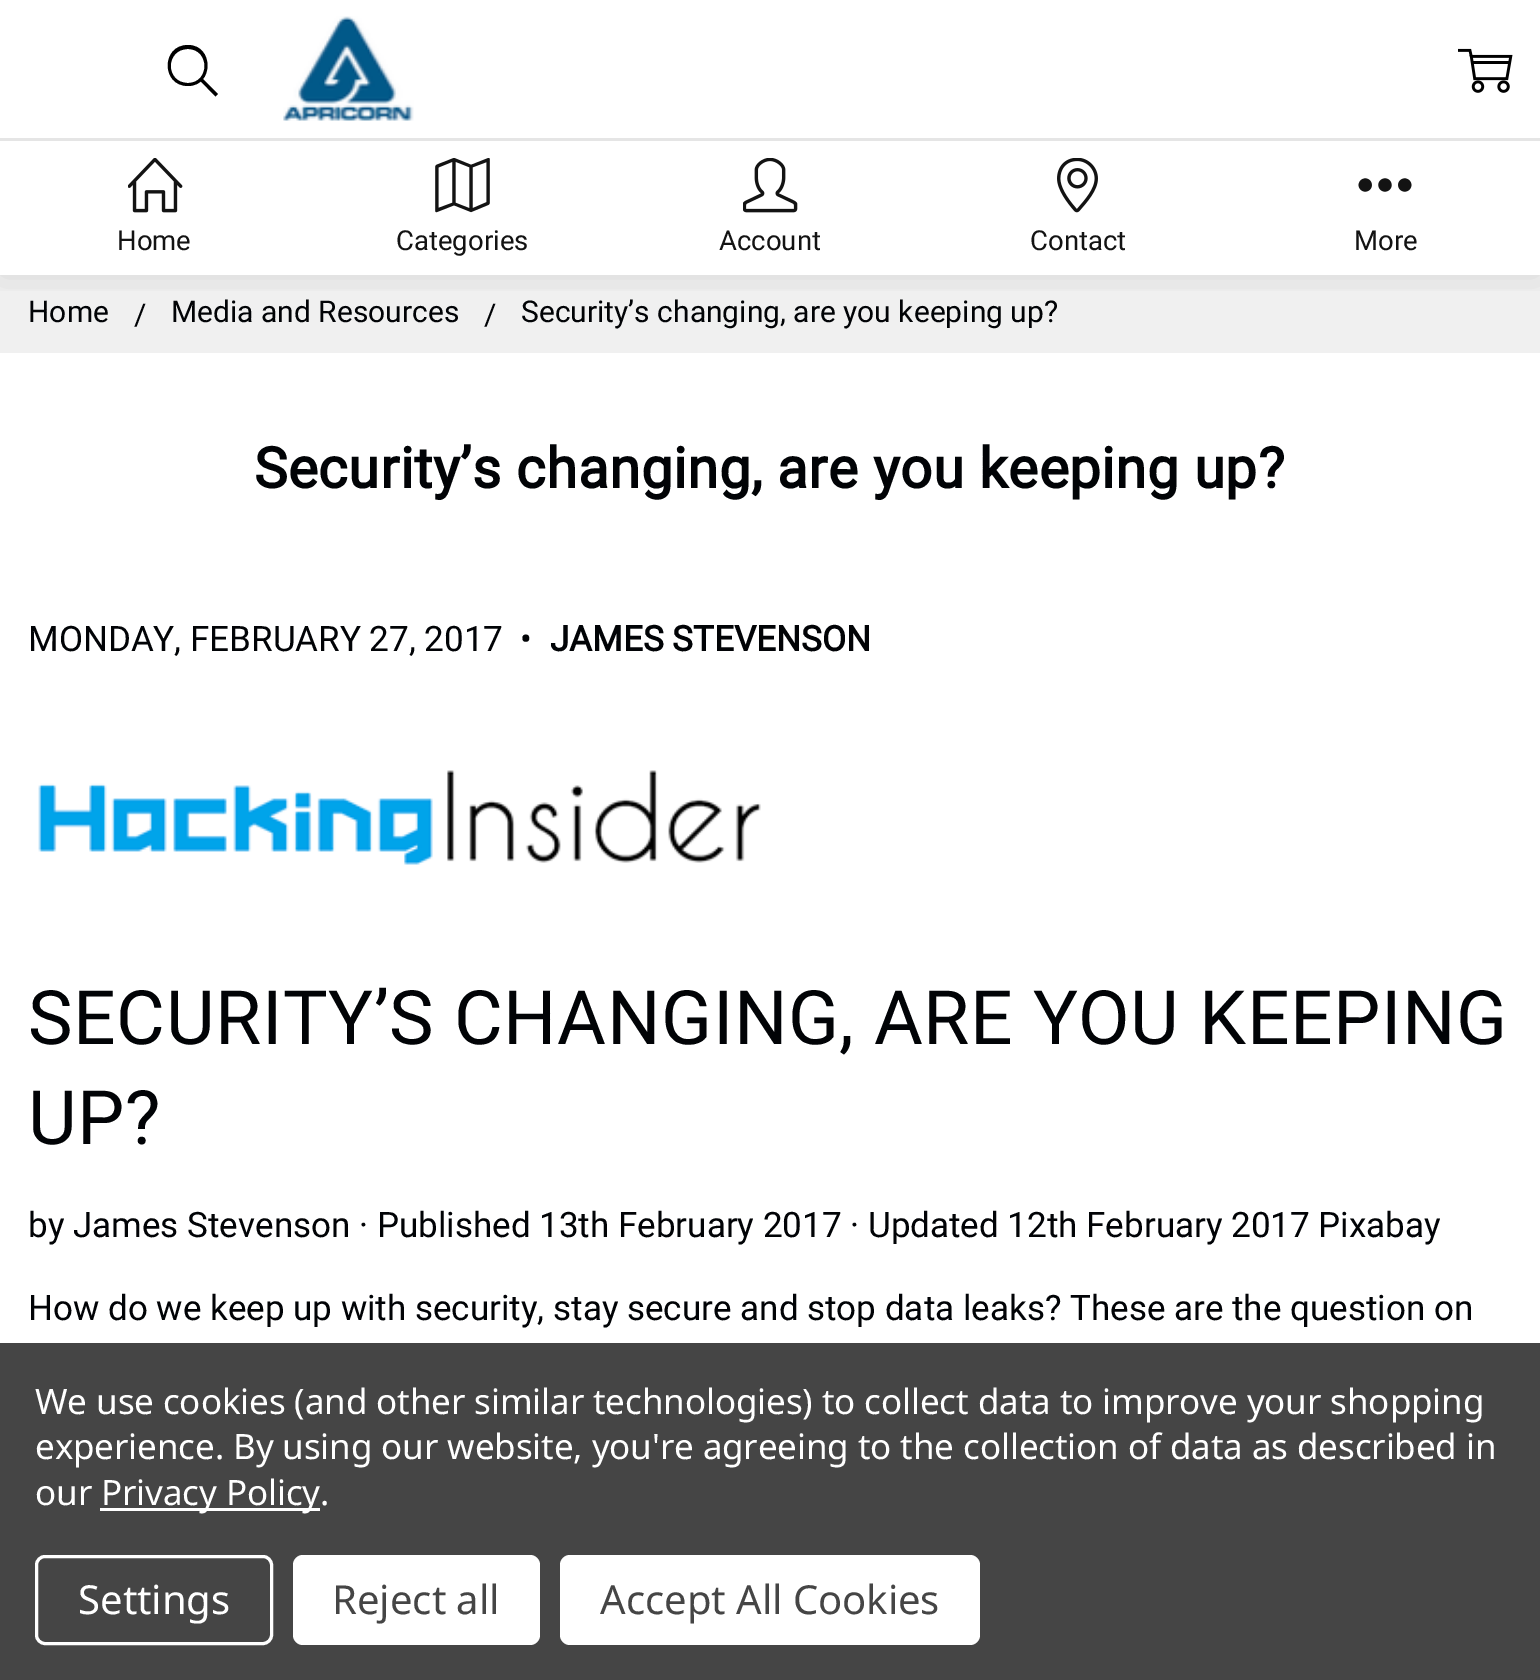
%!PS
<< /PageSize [1540 1680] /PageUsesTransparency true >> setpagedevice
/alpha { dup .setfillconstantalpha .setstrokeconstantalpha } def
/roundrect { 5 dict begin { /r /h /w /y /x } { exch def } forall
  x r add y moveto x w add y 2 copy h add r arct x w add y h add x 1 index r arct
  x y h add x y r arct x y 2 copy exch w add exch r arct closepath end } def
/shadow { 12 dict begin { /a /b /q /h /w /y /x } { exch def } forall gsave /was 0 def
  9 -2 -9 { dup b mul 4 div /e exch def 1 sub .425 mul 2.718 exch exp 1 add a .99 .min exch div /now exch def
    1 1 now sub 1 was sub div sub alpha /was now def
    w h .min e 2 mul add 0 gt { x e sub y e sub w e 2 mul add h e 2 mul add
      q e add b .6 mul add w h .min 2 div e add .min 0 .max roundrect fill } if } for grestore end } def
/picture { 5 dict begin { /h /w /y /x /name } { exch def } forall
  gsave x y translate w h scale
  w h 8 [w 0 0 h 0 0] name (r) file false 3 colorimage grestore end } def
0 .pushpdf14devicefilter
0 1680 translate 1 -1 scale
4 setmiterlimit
1 setgray
0 0 1540 1680 rectfill
0.941 setgray
0 275 1540 78 rectfill
gsave
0 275 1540 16 rectclip
0 setgray
0 138 1540 137 0 19 0.1 shadow
grestore
1 setgray
0 114 1540 24 rectfill
0.898 setgray
0 138 1540 3 rectfill
(img1.rgb) 283 16 131 105 picture
0 setgray
newpath 188 86 moveto 161 86 161 45 188 45 curveto 214 45 214 86 188 86 curveto closepath 188 49 moveto 165 49 165 83 188 83 curveto 210 83 210 49 188 49 curveto closepath fill
newpath 201.5 77.5 moveto 218 94 lineto 215.5 96.5 lineto 199 79.5 lineto closepath fill
(img2.rgb) 1458 48 55 45 picture
(img3.rgb) 128 158 55 55 picture
/Roboto-Regular [27.5 0 0 -27.5 0 0] selectfont
0.075 setgray
117 250 moveto (Home) show
(img4.rgb) 435 158 55 55 picture
396 250 moveto (Categories) show
(img5.rgb) 743 158 55 55 picture
719 250 moveto (Account) show
(img6.rgb) 1057 158 41 55 picture
1030 250 moveto (Contact) show
(img7.rgb) 1358 178 54 14 picture
1354 250 moveto (More) show
/Roboto-Regular [30 0 0 -30 0 0] selectfont
0.004 0.012 0.024 setrgbcolor
28 322 moveto (Home) show
134 325 moveto (/) show
171 322 moveto (Media and Resources) show
484 325 moveto (/) show
521 322 moveto (Security’s changing, are you keeping up?) show
/Roboto-Bold [56.25 0 0 -56.25 0 0] selectfont
254 488 moveto 0.6 0 (Security’s changing, are you keeping up?) ashow
/Roboto-Regular [35 0 0 -35 0 0] selectfont
28 651 moveto (MONDAY, FEBRUARY 27, 2017  •) show
/Roboto-Bold [35 0 0 -35 0 0] selectfont
550 651 moveto (JAMES STEVENSON) show
(img8.rgb) 38 770 723 95 picture
/Roboto-Regular [75 0 0 -75 0 0] selectfont
28 1044 moveto 0.6 0 (SECURITY’S CHANGING, ARE YOU KEEPING) ashow
28 1144 moveto 0.6 0 (UP?) ashow
/Roboto-Regular [35 0 0 -35 0 0] selectfont
28 1237 moveto (by James Stevenson · Published 13th February 2017 · Updated 12th February 2017 Pixabay) show
28 1320 moveto (How do we keep up with security, stay secure and stop data leaks? These are the question on) show
0.271 setgray
0 1343 1540 337 rectfill
/NotoSans-Regular [35 0 0 -35 0 0] selectfont
1 setgray
35 1414 moveto -0.12 0 (We use cookies \(and other similar technologies\) to collect data to improve your shopping) ashow
35 1459 moveto -0.12 0 (experience. By using our website, you're agreeing to the collection of data as described in) ashow
35 1505 moveto -0.12 0 (our) ashow
100 1508 220 3 rectfill
101 1505 moveto -0.12 0 (Privacy Policy.) ashow
3 setlinewidth
36.5 1556.5 235 87 8.5 roundrect stroke
/NotoSans-Regular [40 0 0 -40 0 0] selectfont
78 1614 moveto (Settings) show
293 1555 247 90 10 roundrect fill
0.271 setgray
332 1614 moveto (Reject all) show
1 setgray
560 1555 420 90 10 roundrect fill
0.271 setgray
600 1614 moveto (Accept All Cookies) show
.poppdf14devicefilter showpage
